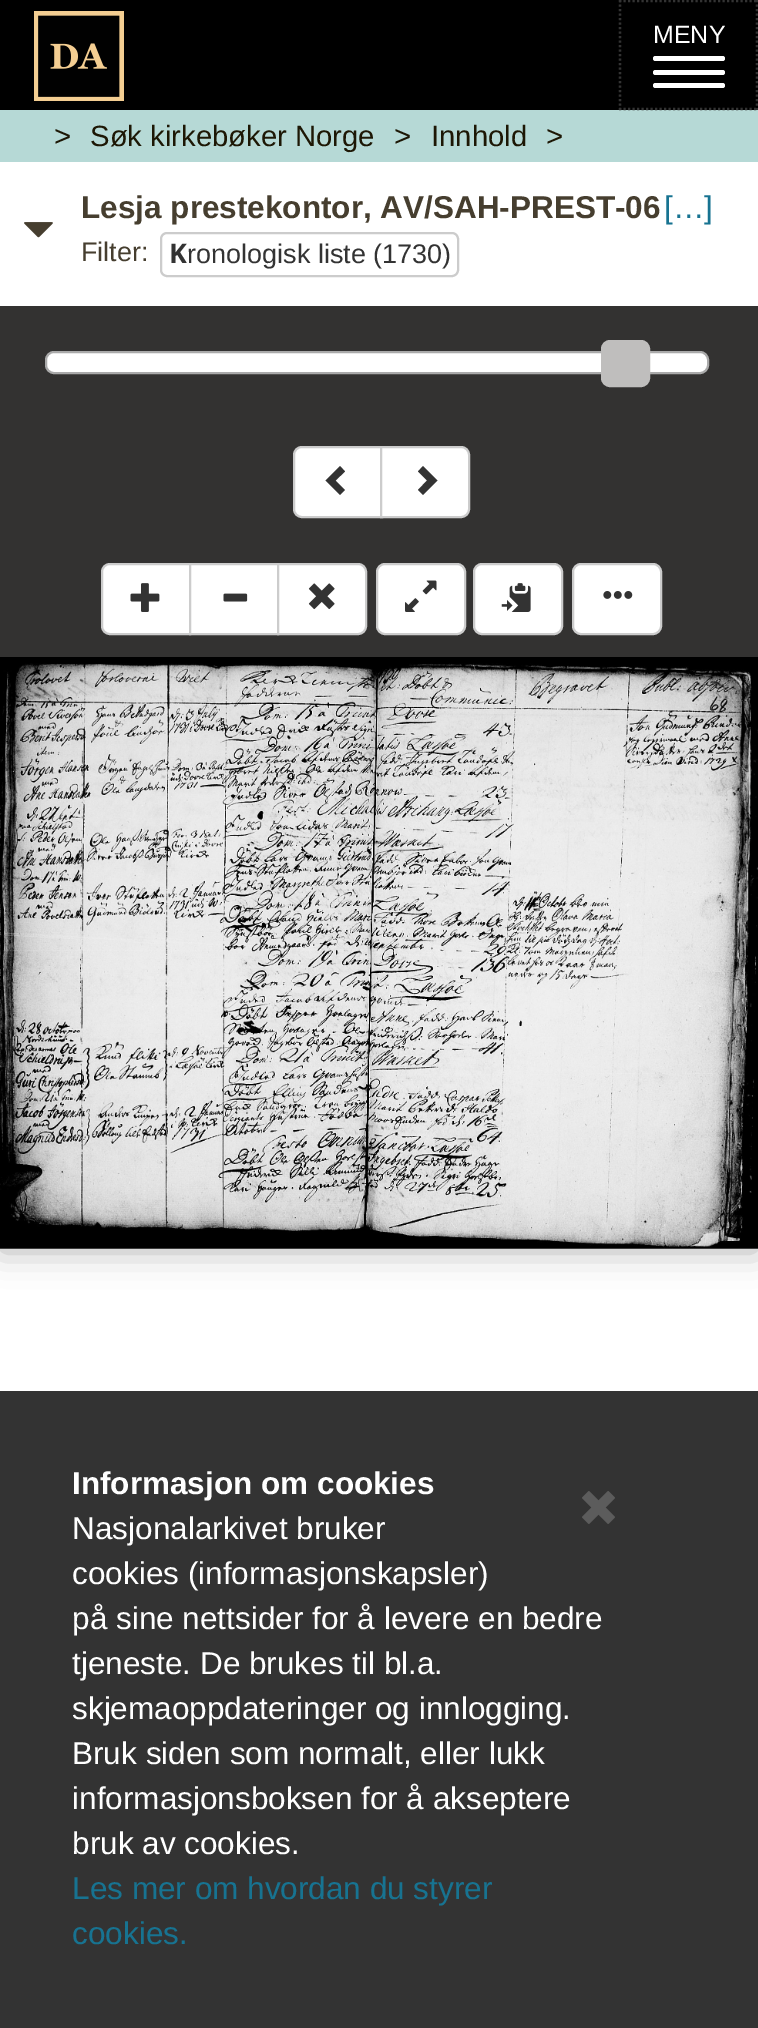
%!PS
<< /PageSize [758 2028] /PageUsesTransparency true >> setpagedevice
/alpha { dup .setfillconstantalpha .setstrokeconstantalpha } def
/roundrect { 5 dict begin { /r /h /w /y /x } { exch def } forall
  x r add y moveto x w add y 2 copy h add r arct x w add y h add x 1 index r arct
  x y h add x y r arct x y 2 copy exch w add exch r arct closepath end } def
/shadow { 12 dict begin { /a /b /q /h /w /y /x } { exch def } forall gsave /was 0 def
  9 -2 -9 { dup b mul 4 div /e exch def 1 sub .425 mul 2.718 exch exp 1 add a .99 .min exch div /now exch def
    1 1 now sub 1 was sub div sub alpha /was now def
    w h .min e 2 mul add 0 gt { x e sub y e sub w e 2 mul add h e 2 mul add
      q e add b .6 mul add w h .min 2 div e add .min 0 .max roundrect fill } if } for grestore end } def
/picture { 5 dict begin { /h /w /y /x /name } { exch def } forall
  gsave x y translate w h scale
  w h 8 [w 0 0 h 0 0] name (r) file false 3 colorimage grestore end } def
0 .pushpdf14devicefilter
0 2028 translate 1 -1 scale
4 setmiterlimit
1 setgray
0 0 758 2028 rectfill
0 setgray
0 0 758 110 rectfill
(img1.rgb) 34 11 90 90 picture
0.2 setgray
2.2 setlinewidth
[2.25 2.25] 0 setdash
newpath 619 1 moveto 758 1 lineto stroke
newpath 757 0 moveto 757 110 lineto stroke
0.714 0.851 0.839 setrgbcolor
0 110 758 52 rectfill
0.2 setgray
newpath 619 109 moveto 758 109 lineto stroke
newpath 620 0 moveto 620 110 lineto stroke
/LiberationSans-Regular [25 0 0 -25 0 0] selectfont
1 setgray
653 43 moveto (MENY) show
653 56 72 5 2.5 roundrect fill
653 70 72 5 2.5 roundrect fill
653 83 72 5 2.5 roundrect fill
/LiberationSans-Regular [29.25 0 0 -29.25 0 0] selectfont
0.114 0.09 0.02 setrgbcolor
54 146 moveto (>) show
90 146 moveto (Søk kirkebøker Norge) show
394 146 moveto (>) show
431 146 moveto (Innhold) show
546 146 moveto (>) show
(img2.rgb) 24 222 29 16 picture
/LiberationSans-Bold [31.5 0 0 -31.5 0 0] selectfont
0.275 0.243 0.184 setrgbcolor
81 218 moveto (Lesja prestekontor, AV/SAH-PREST-06) show
/LiberationSans-Regular [31.5 0 0 -31.5 0 0] selectfont
0.09 0.451 0.569 setrgbcolor
664 218 moveto ([…]) show
/LiberationSans-Regular [27 0 0 -27 0 0] selectfont
0.275 0.243 0.184 setrgbcolor
81 261 moveto (Filter:) show
0.8 setgray
2 setlinewidth
[] 0 setdash
161 233 297 43 6 roundrect stroke
/NotoSans-Bold [27 0 0 -27 0 0] selectfont
0.2 setgray
169 263 moveto (K) show
/LiberationSans-Regular [27 0 0 -27 0 0] selectfont
187 263 moveto (ronologisk liste \(1730\)) show
0.2 0.196 0.192 setrgbcolor
0 306 758 351 rectfill
1 setgray
46 352 662 21 8 roundrect gsave fill grestore
0.667 setgray
stroke
0.749 0.745 0.741 setrgbcolor
602 341 47 45 8 roundrect gsave fill grestore
stroke
1 setgray
newpath 302 447 moveto 382 447 lineto 382 517 lineto 302 517 lineto 297.5 517 294 513.5 294 509 curveto 294 455 lineto 294 450.5 297.5 447 302 447 curveto closepath gsave fill grestore
0.8 setgray
stroke
0.2 setgray
newpath 345 471.5 moveto 335.5 480.5 lineto 345 490 lineto 340 495 lineto 325.5 480.5 lineto 340 466 lineto closepath fill
1 setgray
newpath 381 447 moveto 461 447 lineto 465.5 447 469 450.5 469 455 curveto 469 509 lineto 469 513.5 465.5 517 461 517 curveto 381 517 lineto closepath gsave fill grestore
0.8 setgray
stroke
0.2 setgray
newpath 437.5 480.5 moveto 423 495 lineto 418 490 lineto 427 480.5 lineto 418 471.5 lineto 423 466 lineto closepath fill
1 setgray
newpath 110 564 moveto 190 564 lineto 190 634 lineto 110 634 lineto 105.5 634 102 630.5 102 626 curveto 102 572 lineto 102 567.5 105.5 564 110 564 curveto closepath gsave fill grestore
0.8 setgray
stroke
(img3.rgb) 130 583 30 29 picture
1 setgray
newpath 190 564 moveto 278 564 lineto 278 634 lineto 190 634 lineto closepath gsave fill grestore
0.8 setgray
stroke
(img4.rgb) 223 593 25 9 picture
1 setgray
newpath 278 564 moveto 358 564 lineto 362.5 564 366 567.5 366 572 curveto 366 626 lineto 366 630.5 362.5 634 358 634 curveto 278 634 lineto closepath gsave fill grestore
0.8 setgray
stroke
(img5.rgb) 308 583 27 27 picture
1 setgray
377 564 88 70 8 roundrect gsave fill grestore
0.8 setgray
stroke
(img6.rgb) 405 580 32 32 picture
1 setgray
474 564 88 70 8 roundrect gsave fill grestore
0.8 setgray
stroke
(img7.rgb) 501 583 30 29 picture
1 setgray
573 564 88 70 8 roundrect gsave fill grestore
0.8 setgray
stroke
(img8.rgb) 603 591 30 8 picture
gsave
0 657 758 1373 rectclip
0 setgray
0 659 758 592 0 17 0.3 shadow
grestore
(img9.rgb) 0 657 758 592 picture
0.2 setgray
0 1391 758 637 rectfill
/LiberationSans-Bold [31.5 0 0 -31.5 0 0] selectfont
1 setgray
72 1494 moveto (Informasjon om cookies) show
(img10.rgb) 582 1491 33 33 picture
/LiberationSans-Regular [31.5 0 0 -31.5 0 0] selectfont
72 1539 moveto (Nasjonalarkivet bruker) show
72 1584 moveto (cookies \(informasjonskapsler\)) show
72 1629 moveto (på sine nettsider for å levere en bedre) show
72 1674 moveto (tjeneste. De brukes til bl.a.) show
72 1719 moveto (skjemaoppdateringer og innlogging.) show
72 1764 moveto (Bruk siden som normalt, eller lukk) show
72 1809 moveto (informasjonsboksen for å akseptere) show
72 1854 moveto (bruk av cookies.) show
0.09 0.451 0.569 setrgbcolor
72 1899 moveto (Les mer om hvordan du styrer) show
72 1944 moveto (cookies.) show
.poppdf14devicefilter showpage
